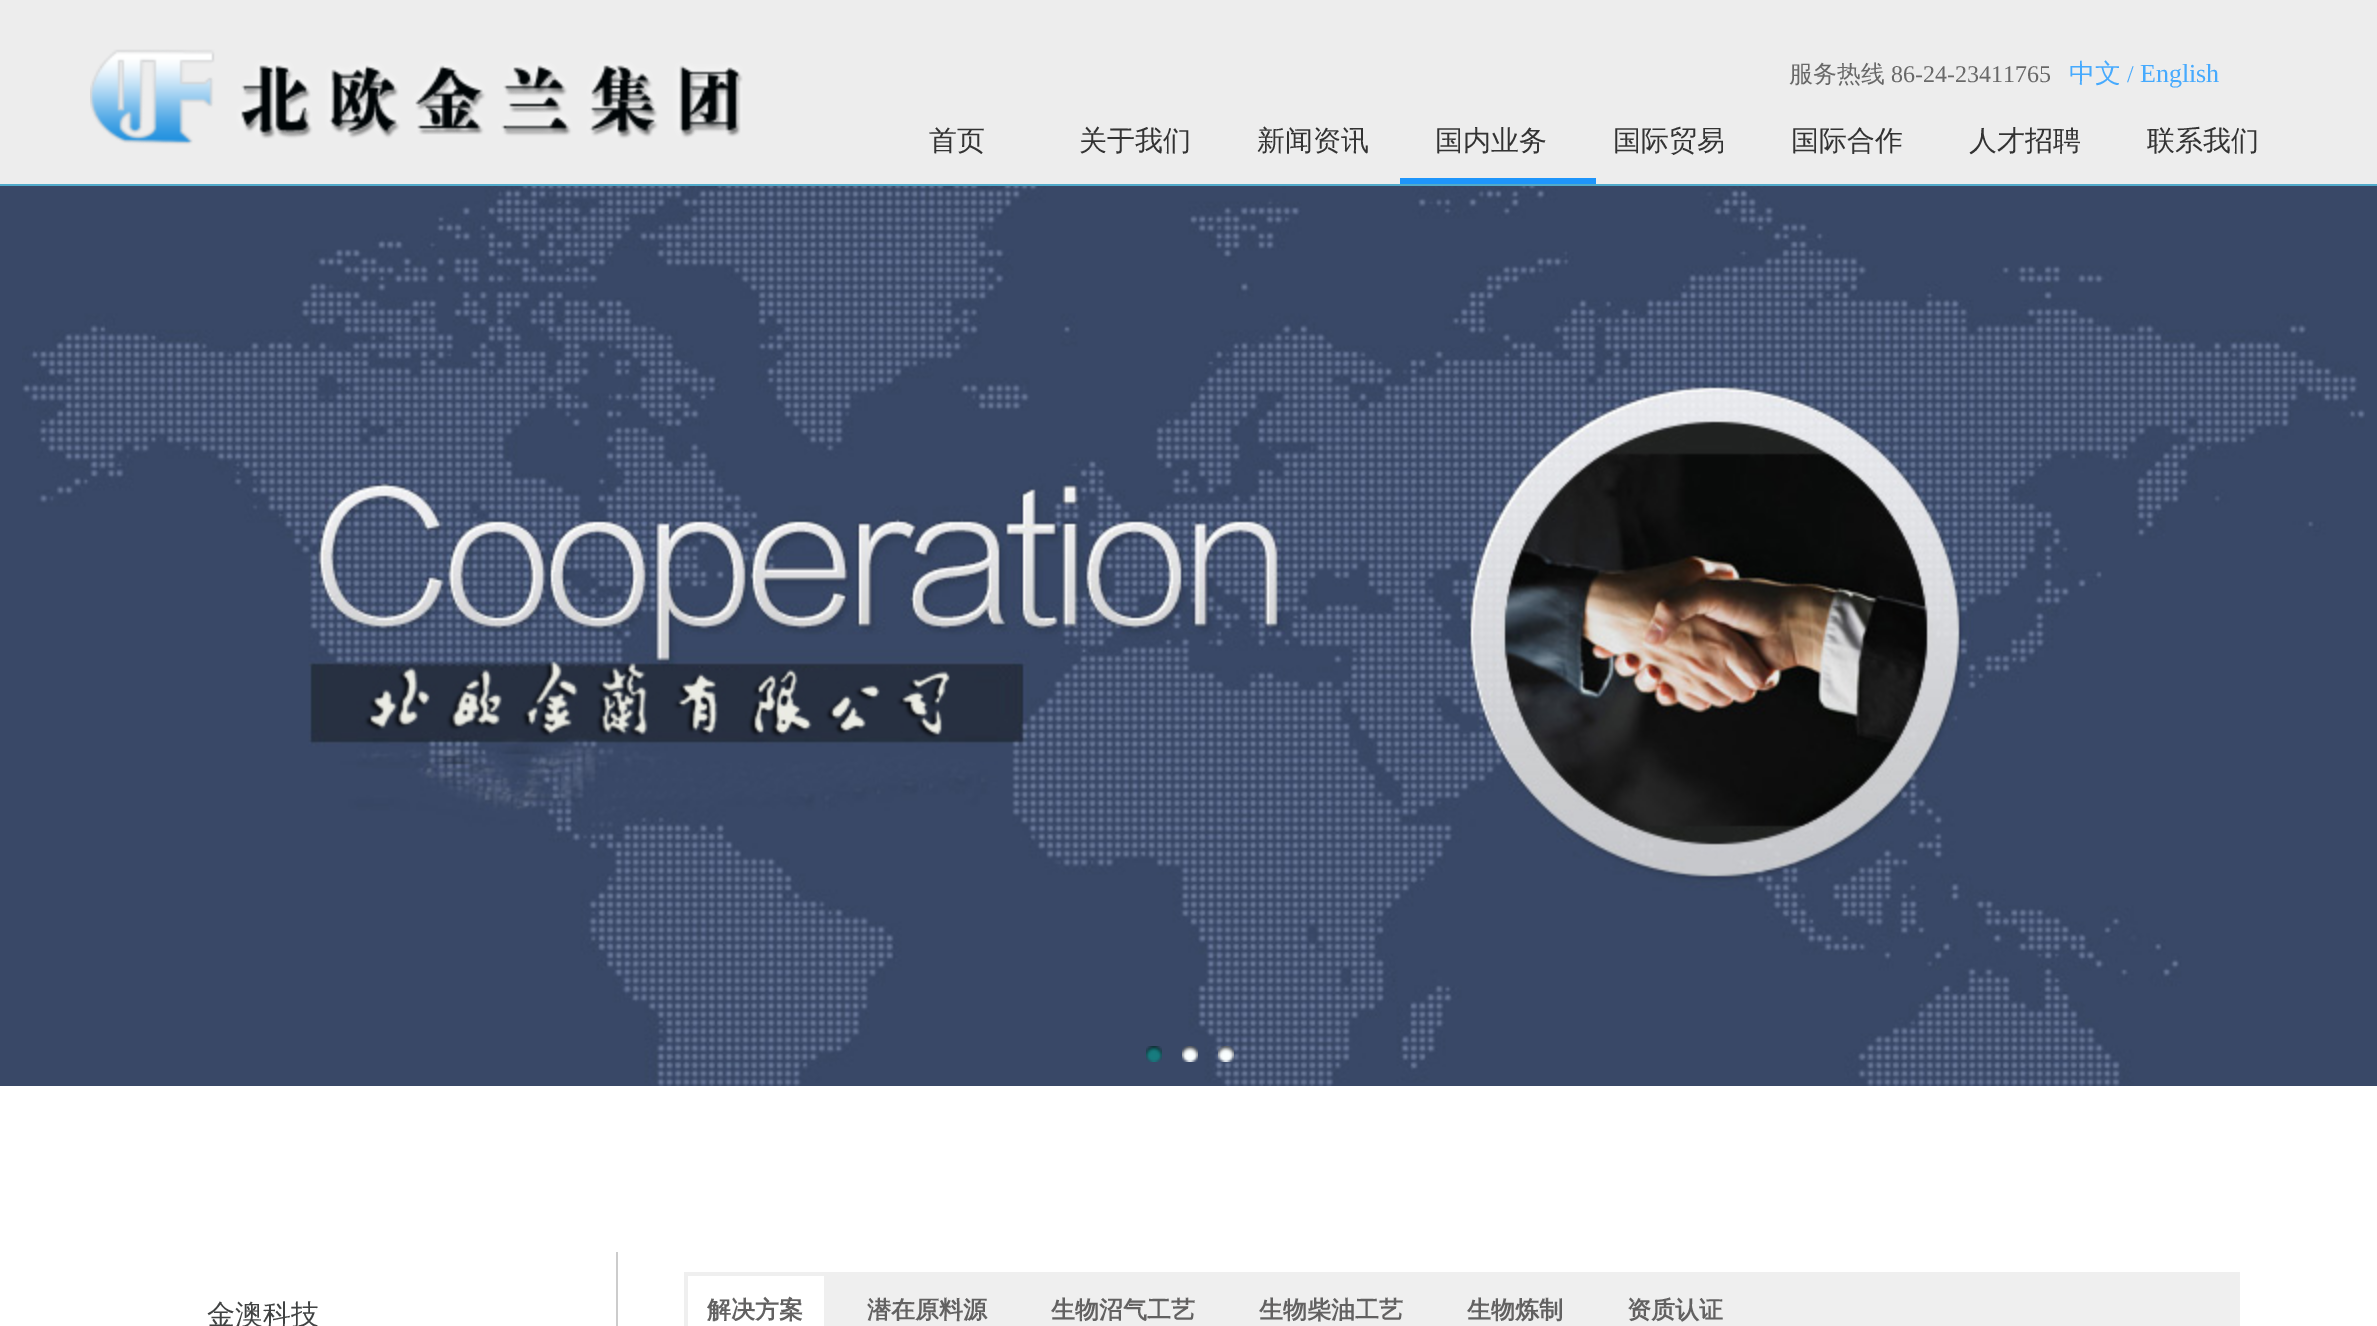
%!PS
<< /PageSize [2377 1326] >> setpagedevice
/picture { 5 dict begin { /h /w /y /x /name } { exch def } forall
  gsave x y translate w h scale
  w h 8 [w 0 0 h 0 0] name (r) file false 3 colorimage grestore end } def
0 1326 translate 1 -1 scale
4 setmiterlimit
1 setgray
0 0 2377 1326 rectfill
0.929 setgray
0 0 2377 184 rectfill
0.318 0.667 0.792 setrgbcolor
0 184 2377 2 rectfill
(img1.rgb) 90 49 653 96 picture
/WenQuanYiZenHei-Medium [24 0 0 -24 0 0] selectfont
0.408 setgray
1789 82 moveto (服务热线) show
/LiberationSerif-Regular [24 0 0 -24 0 0] selectfont
1891 82 moveto (86-24-23411765) show
/WenQuanYiZenHei-Medium [26 0 0 -26 0 0] selectfont
0.275 0.667 0.996 setrgbcolor
2069 82 moveto (中文) show
/LiberationSerif-Regular [24 0 0 -24 0 0] selectfont
2127 82 moveto (/) show
/LiberationSerif-Regular [26 0 0 -26 0 0] selectfont
2140 82 moveto (English) show
/WenQuanYiZenHei-Medium [28 0 0 -28 0 0] selectfont
0.2 setgray
929 150 moveto (首页) show
1079 150 moveto (关于我们) show
1257 150 moveto (新闻资讯) show
1435 150 moveto (国内业务) show
1613 150 moveto (国际贸易) show
1791 150 moveto (国际合作) show
1969 150 moveto (人才招聘) show
2147 150 moveto (联系我们) show
0.118 0.584 0.984 setrgbcolor
1400 178 196 6 rectfill
0.224 0.282 0.404 setrgbcolor
0 186 2377 900 rectfill
(img2.rgb) 22 186 2343 900 picture
(img3.rgb) 1146 1046 16 16 picture
(img4.rgb) 1182 1046 16 16 picture
(img5.rgb) 1218 1046 16 16 picture
0.251 0.259 0.259 setrgbcolor
207 1324 moveto (金澳科技) show
0.8 setgray
616 1252 2 74 rectfill
0.937 setgray
684 1272 1556 54 rectfill
1 setgray
688 1276 136 50 rectfill
/WenQuanYiZenHei-Bold [24 0 0 -24 0 0] selectfont
0.384 0.38 0.38 setrgbcolor
707 1318 moveto (解决方案) show
867 1318 moveto (潜在原料源) show
1051 1318 moveto (生物沼气工艺) show
1259 1318 moveto (生物柴油工艺) show
1467 1318 moveto (生物炼制) show
1627 1318 moveto (资质认证) show
showpage
